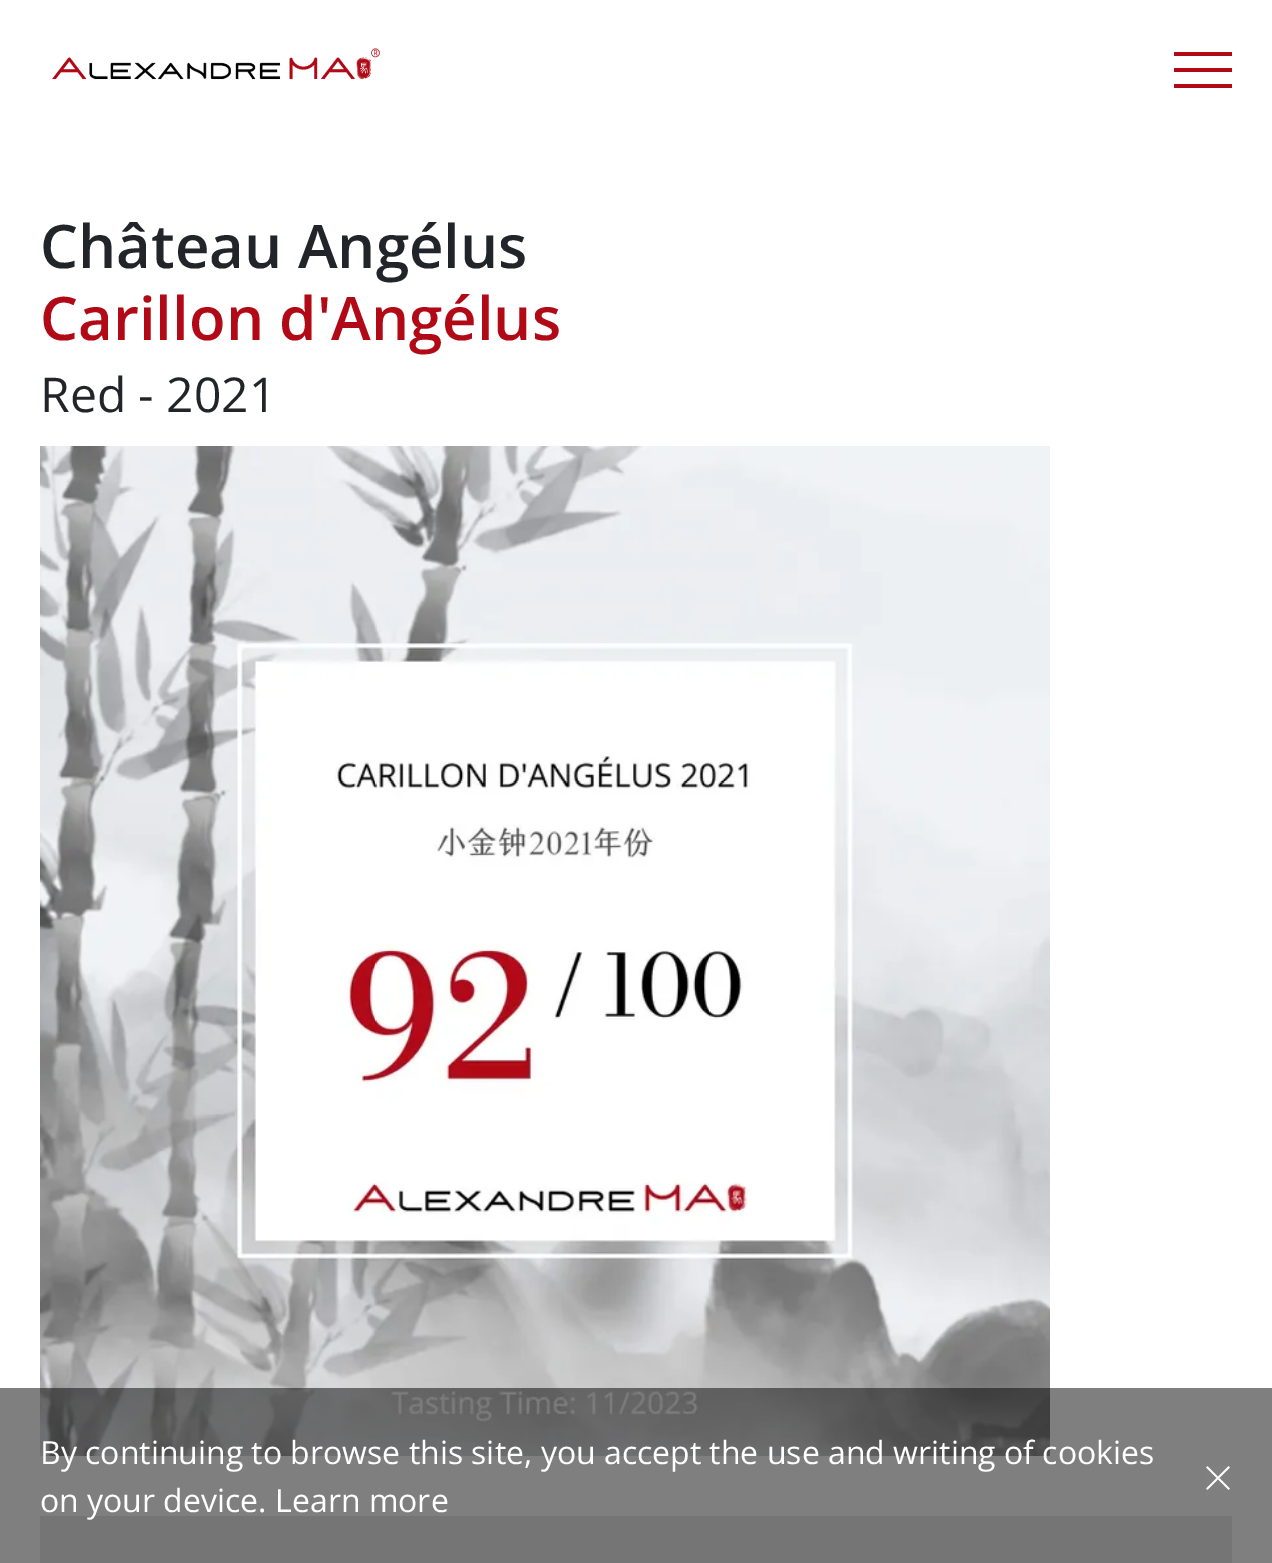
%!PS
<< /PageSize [1272 1563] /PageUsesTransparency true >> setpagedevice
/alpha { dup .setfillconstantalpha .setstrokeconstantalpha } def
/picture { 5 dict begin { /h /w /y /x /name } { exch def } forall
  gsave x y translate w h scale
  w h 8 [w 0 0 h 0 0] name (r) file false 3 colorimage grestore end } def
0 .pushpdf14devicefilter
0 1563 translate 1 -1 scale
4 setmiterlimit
1 setgray
0 0 1272 1563 rectfill
(img1.rgb) 52 48 328 32 picture
0.698 0.035 0.086 setrgbcolor
1174 68 58 4 rectfill
1174 52 58 4 rectfill
1174 84 58 4 rectfill
/OpenSans-SemiBold [60 0 0 -60 0 0] selectfont
0.129 0.145 0.161 setrgbcolor
40 268 moveto (Château Angélus) show
0.698 0.035 0.086 setrgbcolor
40 340 moveto (Carillon d'Angélus) show
/OpenSans-Regular [48 0 0 -48 0 0] selectfont
0.129 0.145 0.161 setrgbcolor
40 412 moveto (Red - 2021) show
(img2.rgb) 40 446 1010 1010 picture
0.918 setgray
40 1516 1192 47 rectfill
0.5 alpha
0 setgray
0 1388 1272 175 rectfill
/OpenSans-Regular [32 0 0 -32 0 0] selectfont
1 alpha
1 setgray
40 1464 moveto (By continuing to browse this site, you accept the use and writing of cookies) show
40 1512 moveto (on your device. Learn more) show
(img3.rgb) 1206 1466 24 24 picture
.poppdf14devicefilter showpage
